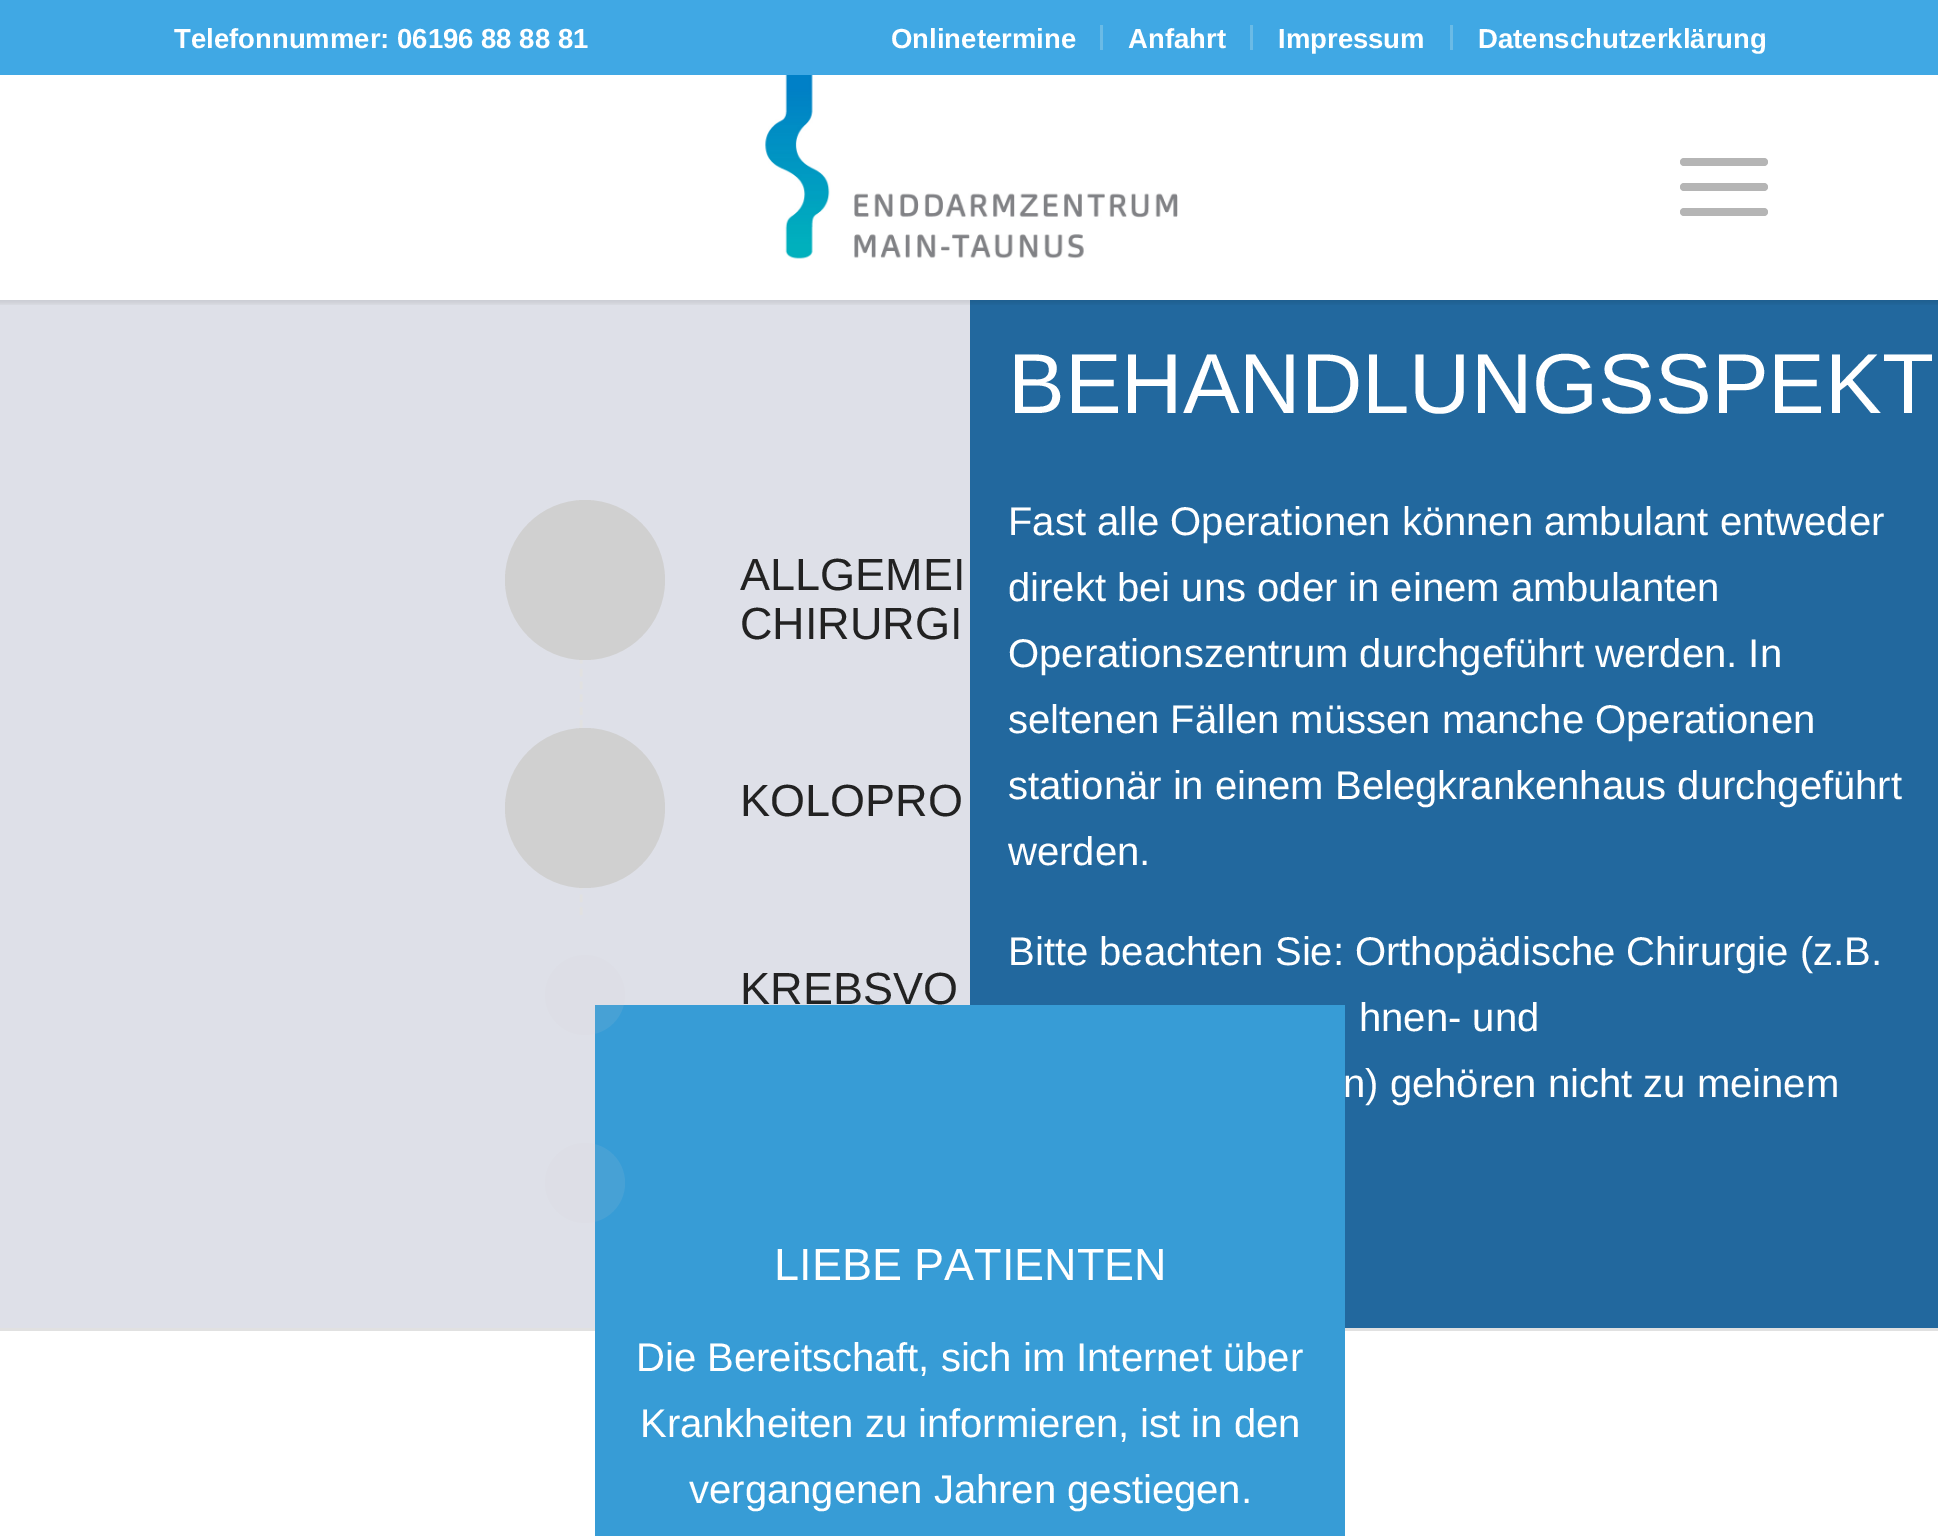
%!PS
<< /PageSize [1938 1536] /PageUsesTransparency true >> setpagedevice
/alpha { dup .setfillconstantalpha .setstrokeconstantalpha } def
/roundrect { 5 dict begin { /r /h /w /y /x } { exch def } forall
  x r add y moveto x w add y 2 copy h add r arct x w add y h add x 1 index r arct
  x y h add x y r arct x y 2 copy exch w add exch r arct closepath end } def
/shadow { 12 dict begin { /a /b /q /h /w /y /x } { exch def } forall gsave /was 0 def
  9 -2 -9 { dup b mul 4 div /e exch def 1 sub .425 mul 2.718 exch exp 1 add a .99 .min exch div /now exch def
    1 1 now sub 1 was sub div sub alpha /was now def
    w h .min e 2 mul add 0 gt { x e sub y e sub w e 2 mul add h e 2 mul add
      q e add b .6 mul add w h .min 2 div e add .min 0 .max roundrect fill } if } for grestore end } def
/picture { 5 dict begin { /h /w /y /x /name } { exch def } forall
  gsave x y translate w h scale
  w h 8 [w 0 0 h 0 0] name (r) file false 3 colorimage grestore end } def
0 .pushpdf14devicefilter
0 1536 translate 1 -1 scale
4 setmiterlimit
1 setgray
0 0 1938 1536 rectfill
0.871 0.878 0.91 setrgbcolor
0 300 970 1028 rectfill
0.133 0.408 0.62 setrgbcolor
970 300 968 1028 rectfill
gsave
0 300 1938 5 rectclip
0 setgray
-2 -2 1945 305 0 2.5 0.1 shadow
grestore
0.251 0.659 0.894 setrgbcolor
0 0 1938 75 rectfill
/LiberationSans-Bold [27.5 0 0 -27.5 0 0] selectfont
1 setgray
174 48 moveto (Telefonnummer: 06196 88 88 81) show
0.416 0.733 0.902 setrgbcolor
1100 25 3 25 rectfill
1 setgray
891 48 moveto (Onlinetermine) show
0.416 0.733 0.902 setrgbcolor
1250 25 3 25 rectfill
1 setgray
1128 48 moveto (Anfahrt) show
0.416 0.733 0.902 setrgbcolor
1450 25 3 25 rectfill
1 setgray
1278 48 moveto (Impressum) show
1478 48 moveto (Datenschutzerklärung) show
(img1.rgb) 765 75 413 184 picture
0.71 setgray
1680 183 88 8 4 roundrect fill
1680 158 88 8 4 roundrect fill
1680 208 88 8 4 roundrect fill
0.882 setgray
2.5 setlinewidth
[7.5 5.3] 0 setdash
newpath 581 502.5 moveto 581 727.5 lineto stroke
0.816 setgray
newpath 585 580 80 0 360 arc closepath fill
/LiberationSans-Regular [45 0 0 -45 0 0] selectfont
0.133 setgray
740 590 moveto (ALLGEMEI) show
740 639 moveto (CHIRURGI) show
0.882 setgray
[7.5 5.35] 0 setdash
newpath 581 727.5 moveto 581 915 lineto stroke
0.816 setgray
newpath 585 808 80 0 360 arc closepath fill
0.133 setgray
740 816 moveto (KOLOPRO) show
0.882 setgray
0 1328 1938 3 rectfill
0.216 0.612 0.839 setrgbcolor
595 1005 750 531 rectfill
0.1 alpha
0.816 setgray
newpath 585 995 40 0 360 arc closepath fill
1 alpha
0.133 setgray
740 1004 moveto (KREBSVO) show
0.1 alpha
0.816 setgray
newpath 585 1183 40 0 360 arc closepath fill
/LiberationSans-Regular [85 0 0 -85 0 0] selectfont
1 alpha
1 setgray
1008 413 moveto (BEHANDLUNGSSPEKT) show
/LiberationSans-Regular [40 0 0 -40 0 0] selectfont
1008 535 moveto (Fast alle Operationen können ambulant entweder) show
1008 601 moveto (direkt bei uns oder in einem ambulanten) show
1008 667 moveto (Operationszentrum durchgeführt werden. In) show
1008 733 moveto (seltenen Fällen müssen manche Operationen) show
1008 799 moveto (stationär in einem Belegkrankenhaus durchgeführt) show
1008 865 moveto (werden.) show
1008 965 moveto (Bitte beachten Sie: Orthopädische Chirurgie \(z.B.) show
1359 1031 moveto (hnen- und) show
1343 1097 moveto (n\) gehören nicht zu meinem) show
/LiberationSans-Regular [45 0 0 -45 0 0] selectfont
774 1280 moveto (LIEBE PATIENTEN) show
/LiberationSans-Regular [40 0 0 -40 0 0] selectfont
636 1371 moveto (Die Bereitschaft, sich im Internet über) show
640 1437 moveto (Krankheiten zu informieren, ist in den) show
689 1503 moveto (vergangenen Jahren gestiegen.) show
.poppdf14devicefilter showpage
